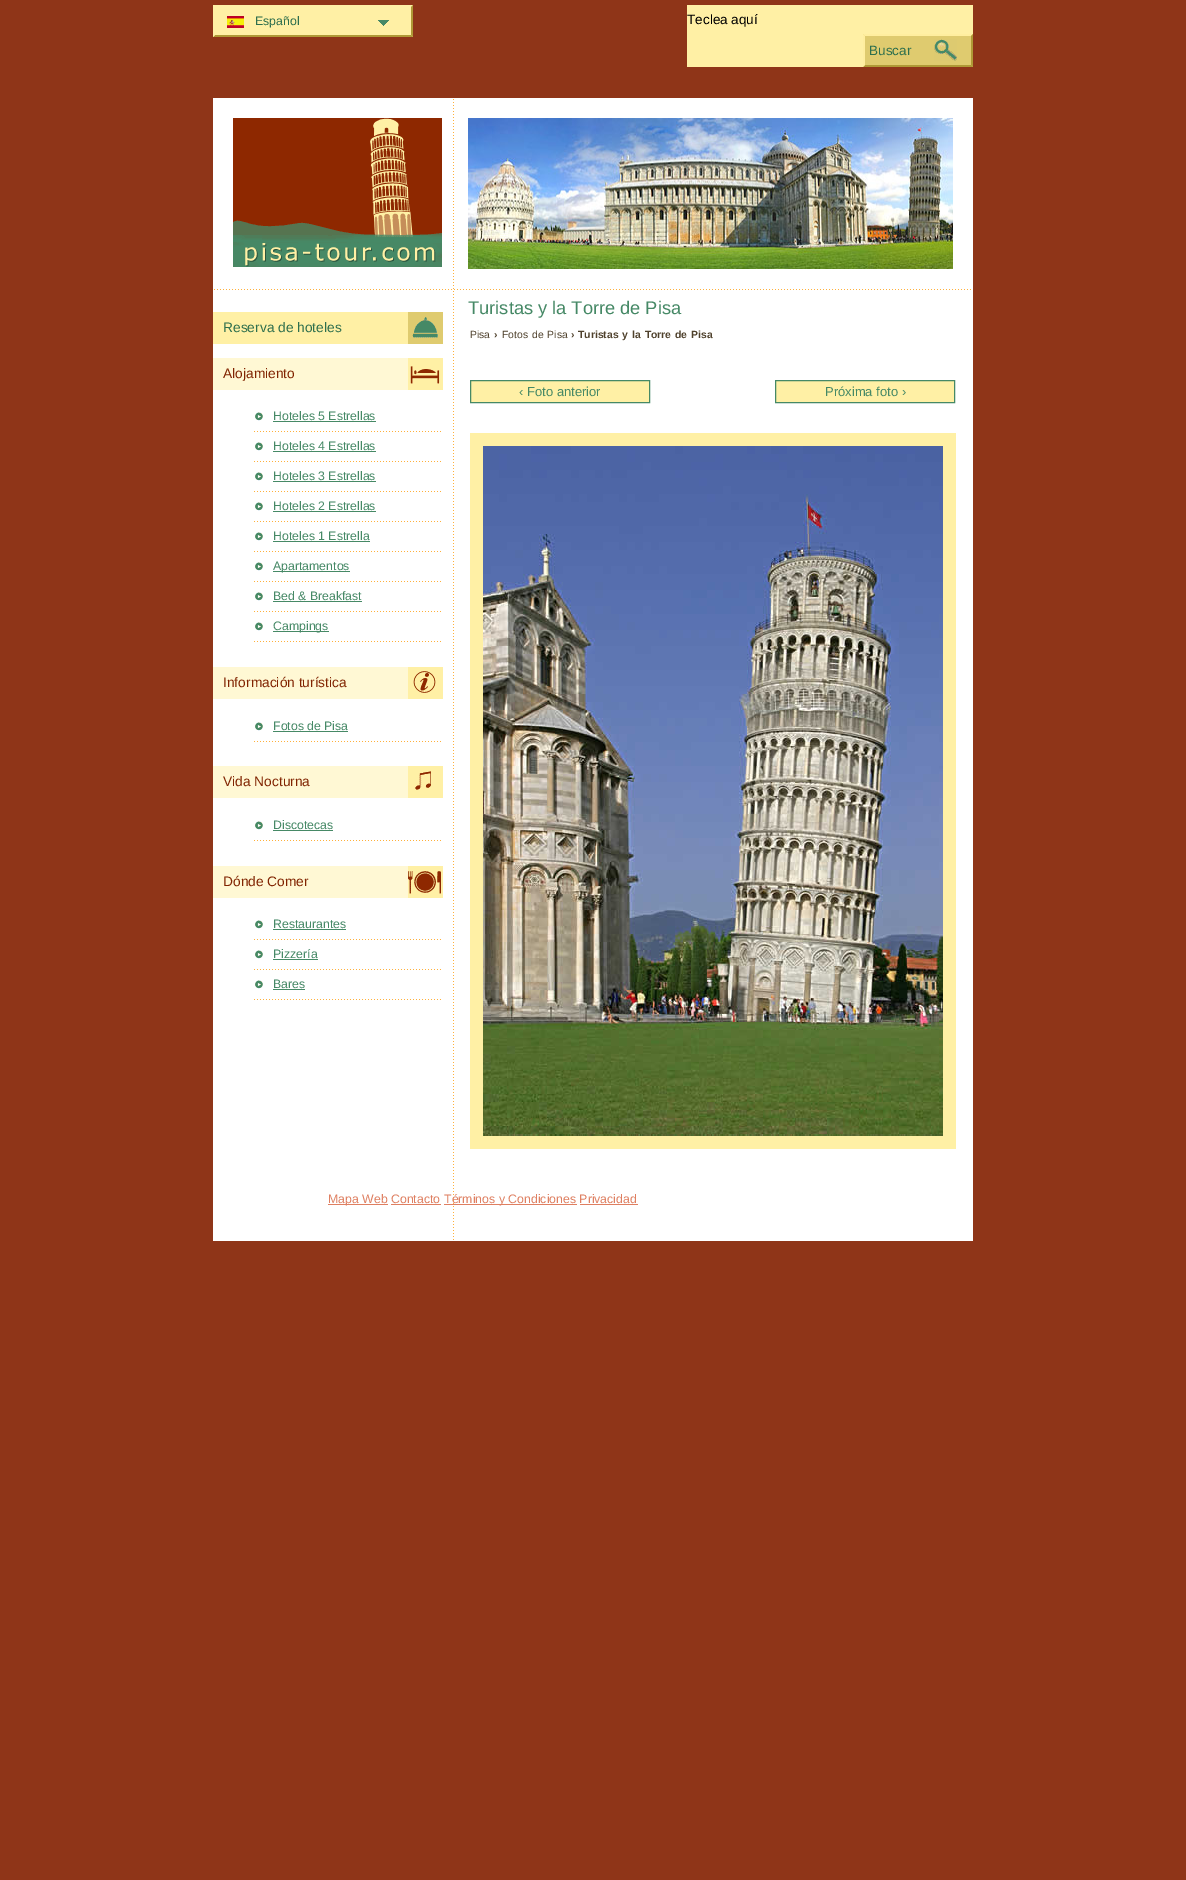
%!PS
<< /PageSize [1186 1880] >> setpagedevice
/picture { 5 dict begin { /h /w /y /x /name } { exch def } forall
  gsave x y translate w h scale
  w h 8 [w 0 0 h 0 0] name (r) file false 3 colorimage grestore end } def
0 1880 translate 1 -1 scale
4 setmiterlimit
0.561 0.208 0.094 setrgbcolor
0 0 1186 1880 rectfill
1 0.941 0.647 setrgbcolor
213 5 200 32 rectfill
(img1.rgb) 378 20 11 6 picture
(img2.rgb) 227 16 17 12 picture
0.686 0.6 0.212 setrgbcolor
newpath 413 5 moveto 413 37 lineto 411 35 lineto 411 7 lineto closepath fill
newpath 413 37 moveto 213 37 lineto 215 35 lineto 411 35 lineto closepath fill
1 0.941 0.647 setrgbcolor
newpath 213 37 moveto 213 5 lineto 215 7 lineto 215 35 lineto closepath fill
/LiberationSans-Regular [12.3 0 0 -12.3 0 0] selectfont
0.18 0.435 0.302 setrgbcolor
255 25 moveto (Español) show
1 0.941 0.647 setrgbcolor
687 5 286 62 rectfill
/LiberationSans-Regular [13.5 0 0 -13.5 0 0] selectfont
0 setgray
687 24 moveto (Teclea aquí) show
0.875 0.796 0.435 setrgbcolor
863 34 110 33 rectfill
(img3.rgb) 934 39 23 22 picture
1 0.933 0.624 setrgbcolor
newpath 863 34 moveto 973 34 lineto 971 36 lineto 865 36 lineto closepath fill
0.686 0.6 0.212 setrgbcolor
newpath 973 34 moveto 973 67 lineto 971 65 lineto 971 36 lineto closepath fill
newpath 973 67 moveto 863 67 lineto 865 65 lineto 971 65 lineto closepath fill
1 0.933 0.624 setrgbcolor
newpath 863 67 moveto 863 34 lineto 865 36 lineto 865 65 lineto closepath fill
0.18 0.435 0.302 setrgbcolor
869 55 moveto (Buscar) show
1 setgray
213 98 760 1143 rectfill
(img4.rgb) 453 99 1 1141 picture
(img5.rgb) 214 289 757 1 picture
(img6.rgb) 233 118 209 149 picture
(img7.rgb) 468 118 485 151 picture
/LiberationSans-Regular [18.25 0 0 -18.25 0 0] selectfont
0.275 0.537 0.4 setrgbcolor
468 314 moveto (Turistas y la Torre de Pisa) show
1 0.941 0.647 setrgbcolor
213 312 195 32 rectfill
(img8.rgb) 408 312 35 32 picture
/LiberationSans-Regular [13.75 0 0 -13.75 0 0] selectfont
0.18 0.435 0.302 setrgbcolor
223 332 moveto (Reserva de hoteles) show
1 0.973 0.831 setrgbcolor
213 358 195 32 rectfill
(img9.rgb) 408 358 35 32 picture
0.506 0.141 0.004 setrgbcolor
223 378 moveto (Alojamiento) show
(img10.rgb) 254 431 187 1 picture
(img11.rgb) 255 412 8 9 picture
/LiberationSans-Regular [12.3 0 0 -12.3 0 0] selectfont
0.275 0.537 0.4 setrgbcolor
273 420 moveto (Hoteles 5 Estrellas) show
273 421 103 1 rectfill
(img10.rgb) 254 461 187 1 picture
(img11.rgb) 255 442 8 9 picture
273 450 moveto (Hoteles 4 Estrellas) show
273 451 103 1 rectfill
(img10.rgb) 254 491 187 1 picture
(img11.rgb) 255 472 8 9 picture
273 480 moveto (Hoteles 3 Estrellas) show
273 481 103 1 rectfill
(img10.rgb) 254 521 187 1 picture
(img11.rgb) 255 502 8 9 picture
273 510 moveto (Hoteles 2 Estrellas) show
273 511 103 1 rectfill
(img10.rgb) 254 551 187 1 picture
(img11.rgb) 255 532 8 9 picture
273 540 moveto (Hoteles 1 Estrella) show
273 541 97 1 rectfill
(img10.rgb) 254 581 187 1 picture
(img11.rgb) 255 562 8 9 picture
273 571 77 1 rectfill
273 570 moveto (Apartamentos) show
(img10.rgb) 254 611 187 1 picture
(img11.rgb) 255 592 8 9 picture
273 600 moveto (Bed & Breakfast) show
273 601 89 1 rectfill
(img10.rgb) 254 641 187 1 picture
(img11.rgb) 255 622 8 9 picture
273 631 56 1 rectfill
273 630 moveto (Campings) show
1 0.973 0.831 setrgbcolor
213 667 195 32 rectfill
(img12.rgb) 408 667 35 32 picture
/LiberationSans-Regular [13.75 0 0 -13.75 0 0] selectfont
0.506 0.141 0.004 setrgbcolor
223 687 moveto (Información turística) show
(img10.rgb) 254 741 187 1 picture
(img11.rgb) 255 722 8 9 picture
/LiberationSans-Regular [12.3 0 0 -12.3 0 0] selectfont
0.275 0.537 0.4 setrgbcolor
273 730 moveto (Fotos de Pisa) show
273 731 75 1 rectfill
1 0.973 0.831 setrgbcolor
213 766 195 32 rectfill
(img13.rgb) 408 766 35 32 picture
/LiberationSans-Regular [13.75 0 0 -13.75 0 0] selectfont
0.506 0.141 0.004 setrgbcolor
223 786 moveto (Vida Nocturna) show
(img10.rgb) 254 840 187 1 picture
(img11.rgb) 255 821 8 9 picture
/LiberationSans-Regular [12.3 0 0 -12.3 0 0] selectfont
0.275 0.537 0.4 setrgbcolor
273 829 moveto (Discotecas) show
273 830 60 1 rectfill
1 0.973 0.831 setrgbcolor
213 866 195 32 rectfill
(img14.rgb) 408 866 35 32 picture
/LiberationSans-Regular [13.75 0 0 -13.75 0 0] selectfont
0.506 0.141 0.004 setrgbcolor
223 886 moveto (Dónde Comer) show
(img10.rgb) 254 939 187 1 picture
(img11.rgb) 255 920 8 9 picture
/LiberationSans-Regular [12.3 0 0 -12.3 0 0] selectfont
0.275 0.537 0.4 setrgbcolor
273 928 moveto (Restaurantes) show
273 929 73 1 rectfill
(img10.rgb) 254 969 187 1 picture
(img11.rgb) 255 950 8 9 picture
273 958 moveto (Pizzería) show
273 959 45 1 rectfill
(img10.rgb) 254 999 187 1 picture
(img11.rgb) 255 980 8 9 picture
273 988 moveto (Bares) show
273 989 32 1 rectfill
/LiberationSans-Regular [10.4 0 0 -10.4 0 0] selectfont
0.31 0.255 0.173 setrgbcolor
470 338 moveto (Pisa) show
/LiberationSans-Bold [10.4 0 0 -10.4 0 0] selectfont
494 338 moveto (›) show
/LiberationSans-Regular [10.4 0 0 -10.4 0 0] selectfont
502 338 moveto 1 0 32 (Fotos de Pisa) widthshow
/LiberationSans-Bold [10.4 0 0 -10.4 0 0] selectfont
571 338 moveto (›) show
578 338 moveto 1 0 32 (Turistas y la Torre de Pisa) widthshow
1 0.941 0.647 setrgbcolor
newpath 470.5 380.5 moveto 649.5 380.5 lineto 649.5 402.5 lineto 470.5 402.5 lineto closepath gsave fill grestore
0.275 0.537 0.4 setrgbcolor
stroke
/LiberationSans-Regular [13 0 0 -13 0 0] selectfont
519 396 moveto (‹ Foto anterior) show
1 0.941 0.647 setrgbcolor
newpath 775.5 380.5 moveto 954.5 380.5 lineto 954.5 402.5 lineto 775.5 402.5 lineto closepath gsave fill grestore
0.275 0.537 0.4 setrgbcolor
stroke
825 396 moveto (Próxima foto ›) show
1 0.941 0.647 setrgbcolor
470 433 486 716 rectfill
(img15.rgb) 483 446 460 690 picture
0.875 0.498 0.38 setrgbcolor
328 1204 60 1 rectfill
/LiberationSans-Regular [12.3 0 0 -12.3 0 0] selectfont
328 1203 moveto (Mapa Web Contacto) show
444 1204 133 1 rectfill
444 1203 moveto (Términos y Condiciones Privacidad) show
391 1204 50 1 rectfill
580 1204 58 1 rectfill
showpage
